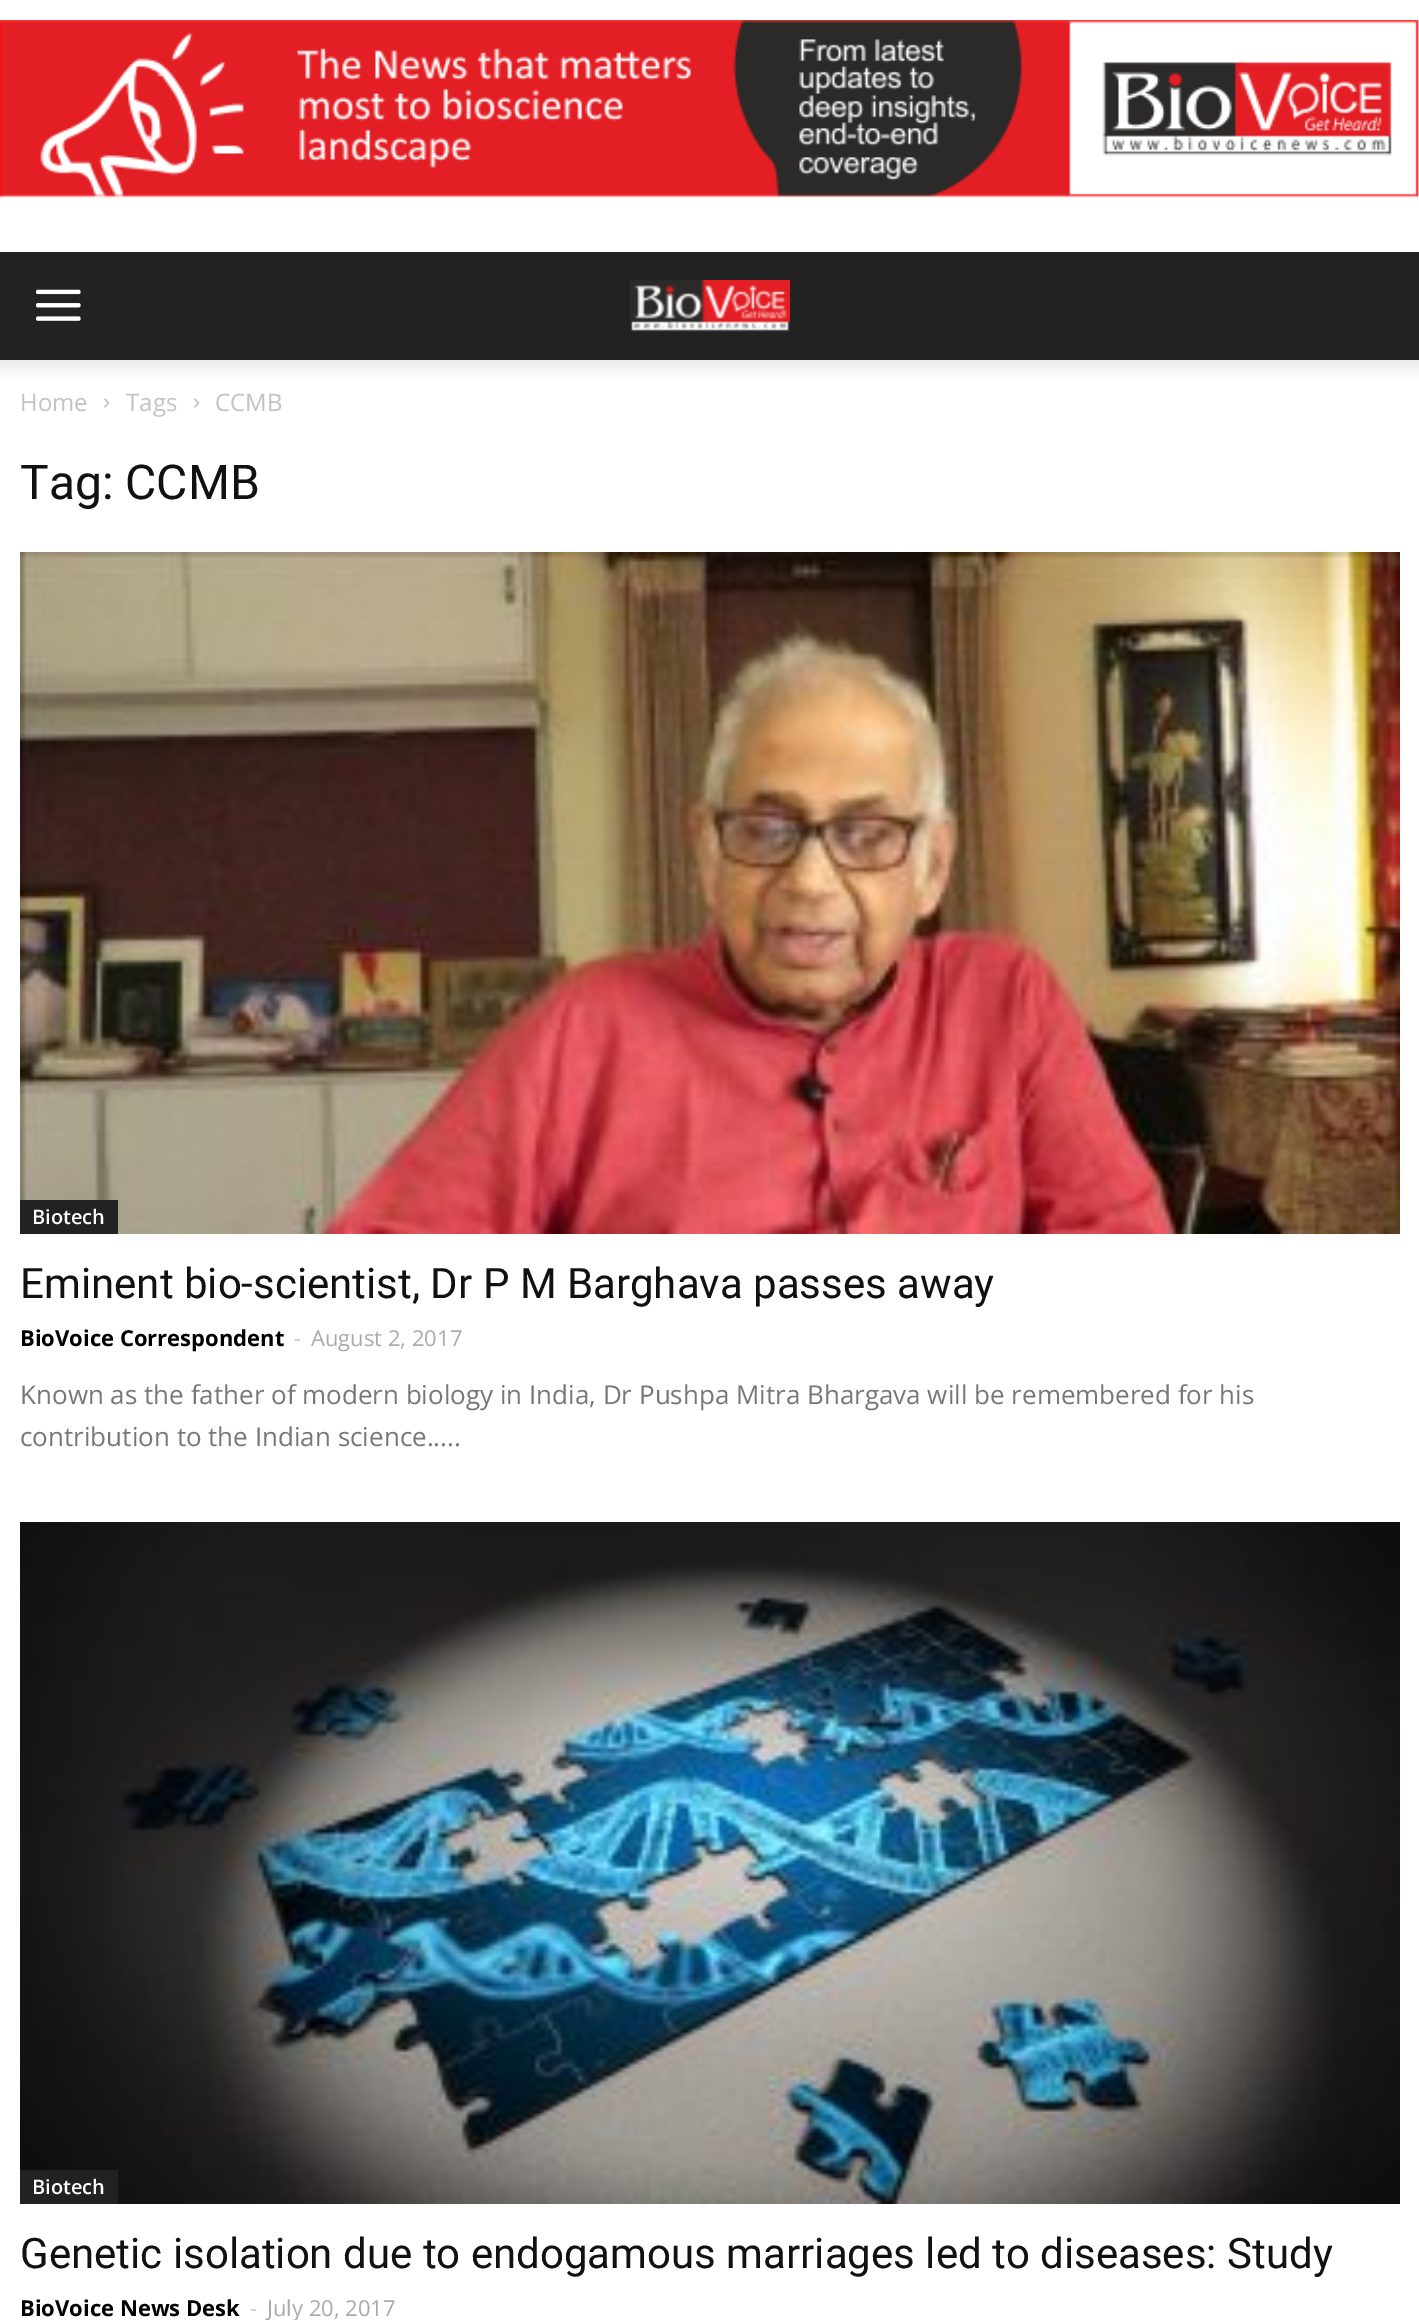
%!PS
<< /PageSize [1419 2320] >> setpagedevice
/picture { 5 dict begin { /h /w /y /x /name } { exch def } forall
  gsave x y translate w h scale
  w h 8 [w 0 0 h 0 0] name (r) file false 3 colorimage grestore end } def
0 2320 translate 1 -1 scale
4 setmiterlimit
1 setgray
0 0 1419 2320 rectfill
(img1.rgb) 0 20 1419 178 picture
0.133 setgray
0 252 1419 108 rectfill
(img2.rgb) 36 289 45 32 picture
(img3.rgb) 630 280 160 52 picture
(img4.rgb) 0 360 1419 17 picture
/OpenSans-Regular [24 0 0 -24 0 0] selectfont
0.765 setgray
20 411 moveto (Home) show
(img5.rgb) 104 398 6 10 picture
126 411 moveto (Tags) show
(img5.rgb) 194 398 6 10 picture
215 411 moveto (CCMB) show
/Roboto-Regular [48 0 0 -48 0 0] selectfont
0.067 setgray
20 499 moveto (Tag: CCMB) show
(img6.rgb) 20 552 1380 682 picture
0.133 setgray
20 1200 98 34 rectfill
/OpenSans-SemiBold [20 0 0 -20 0 0] selectfont
1 setgray
32 1224 moveto (Biotech) show
/Roboto-Regular [42 0 0 -42 0 0] selectfont
0.067 setgray
20 1298 moveto (Eminent bio-scientist, Dr P M Barghava passes away) show
/OpenSans-Bold [22 0 0 -22 0 0] selectfont
0 setgray
20 1346 moveto (BioVoice Correspondent) show
/OpenSans-Regular [22 0 0 -22 0 0] selectfont
0.8 setgray
294 1346 moveto (-) show
0.667 setgray
311 1346 moveto (August 2, 2017) show
/OpenSans-Regular [26 0 0 -26 0 0] selectfont
0.467 setgray
20 1404 moveto (Known as the father of modern biology in India, Dr Pushpa Mitra Bhargava will be remembered for his) show
20 1446 moveto (contribution to the Indian science.....) show
(img7.rgb) 20 1522 1380 682 picture
0.133 setgray
20 2170 98 34 rectfill
/OpenSans-SemiBold [20 0 0 -20 0 0] selectfont
1 setgray
32 2194 moveto (Biotech) show
/Roboto-Regular [42 0 0 -42 0 0] selectfont
0.067 setgray
20 2268 moveto (Genetic isolation due to endogamous marriages led to diseases: Study) show
/OpenSans-Bold [22 0 0 -22 0 0] selectfont
0 setgray
20 2316 moveto (BioVoice News Desk) show
/OpenSans-Regular [22 0 0 -22 0 0] selectfont
0.8 setgray
250 2316 moveto (-) show
0.667 setgray
267 2316 moveto (July 20, 2017) show
showpage
